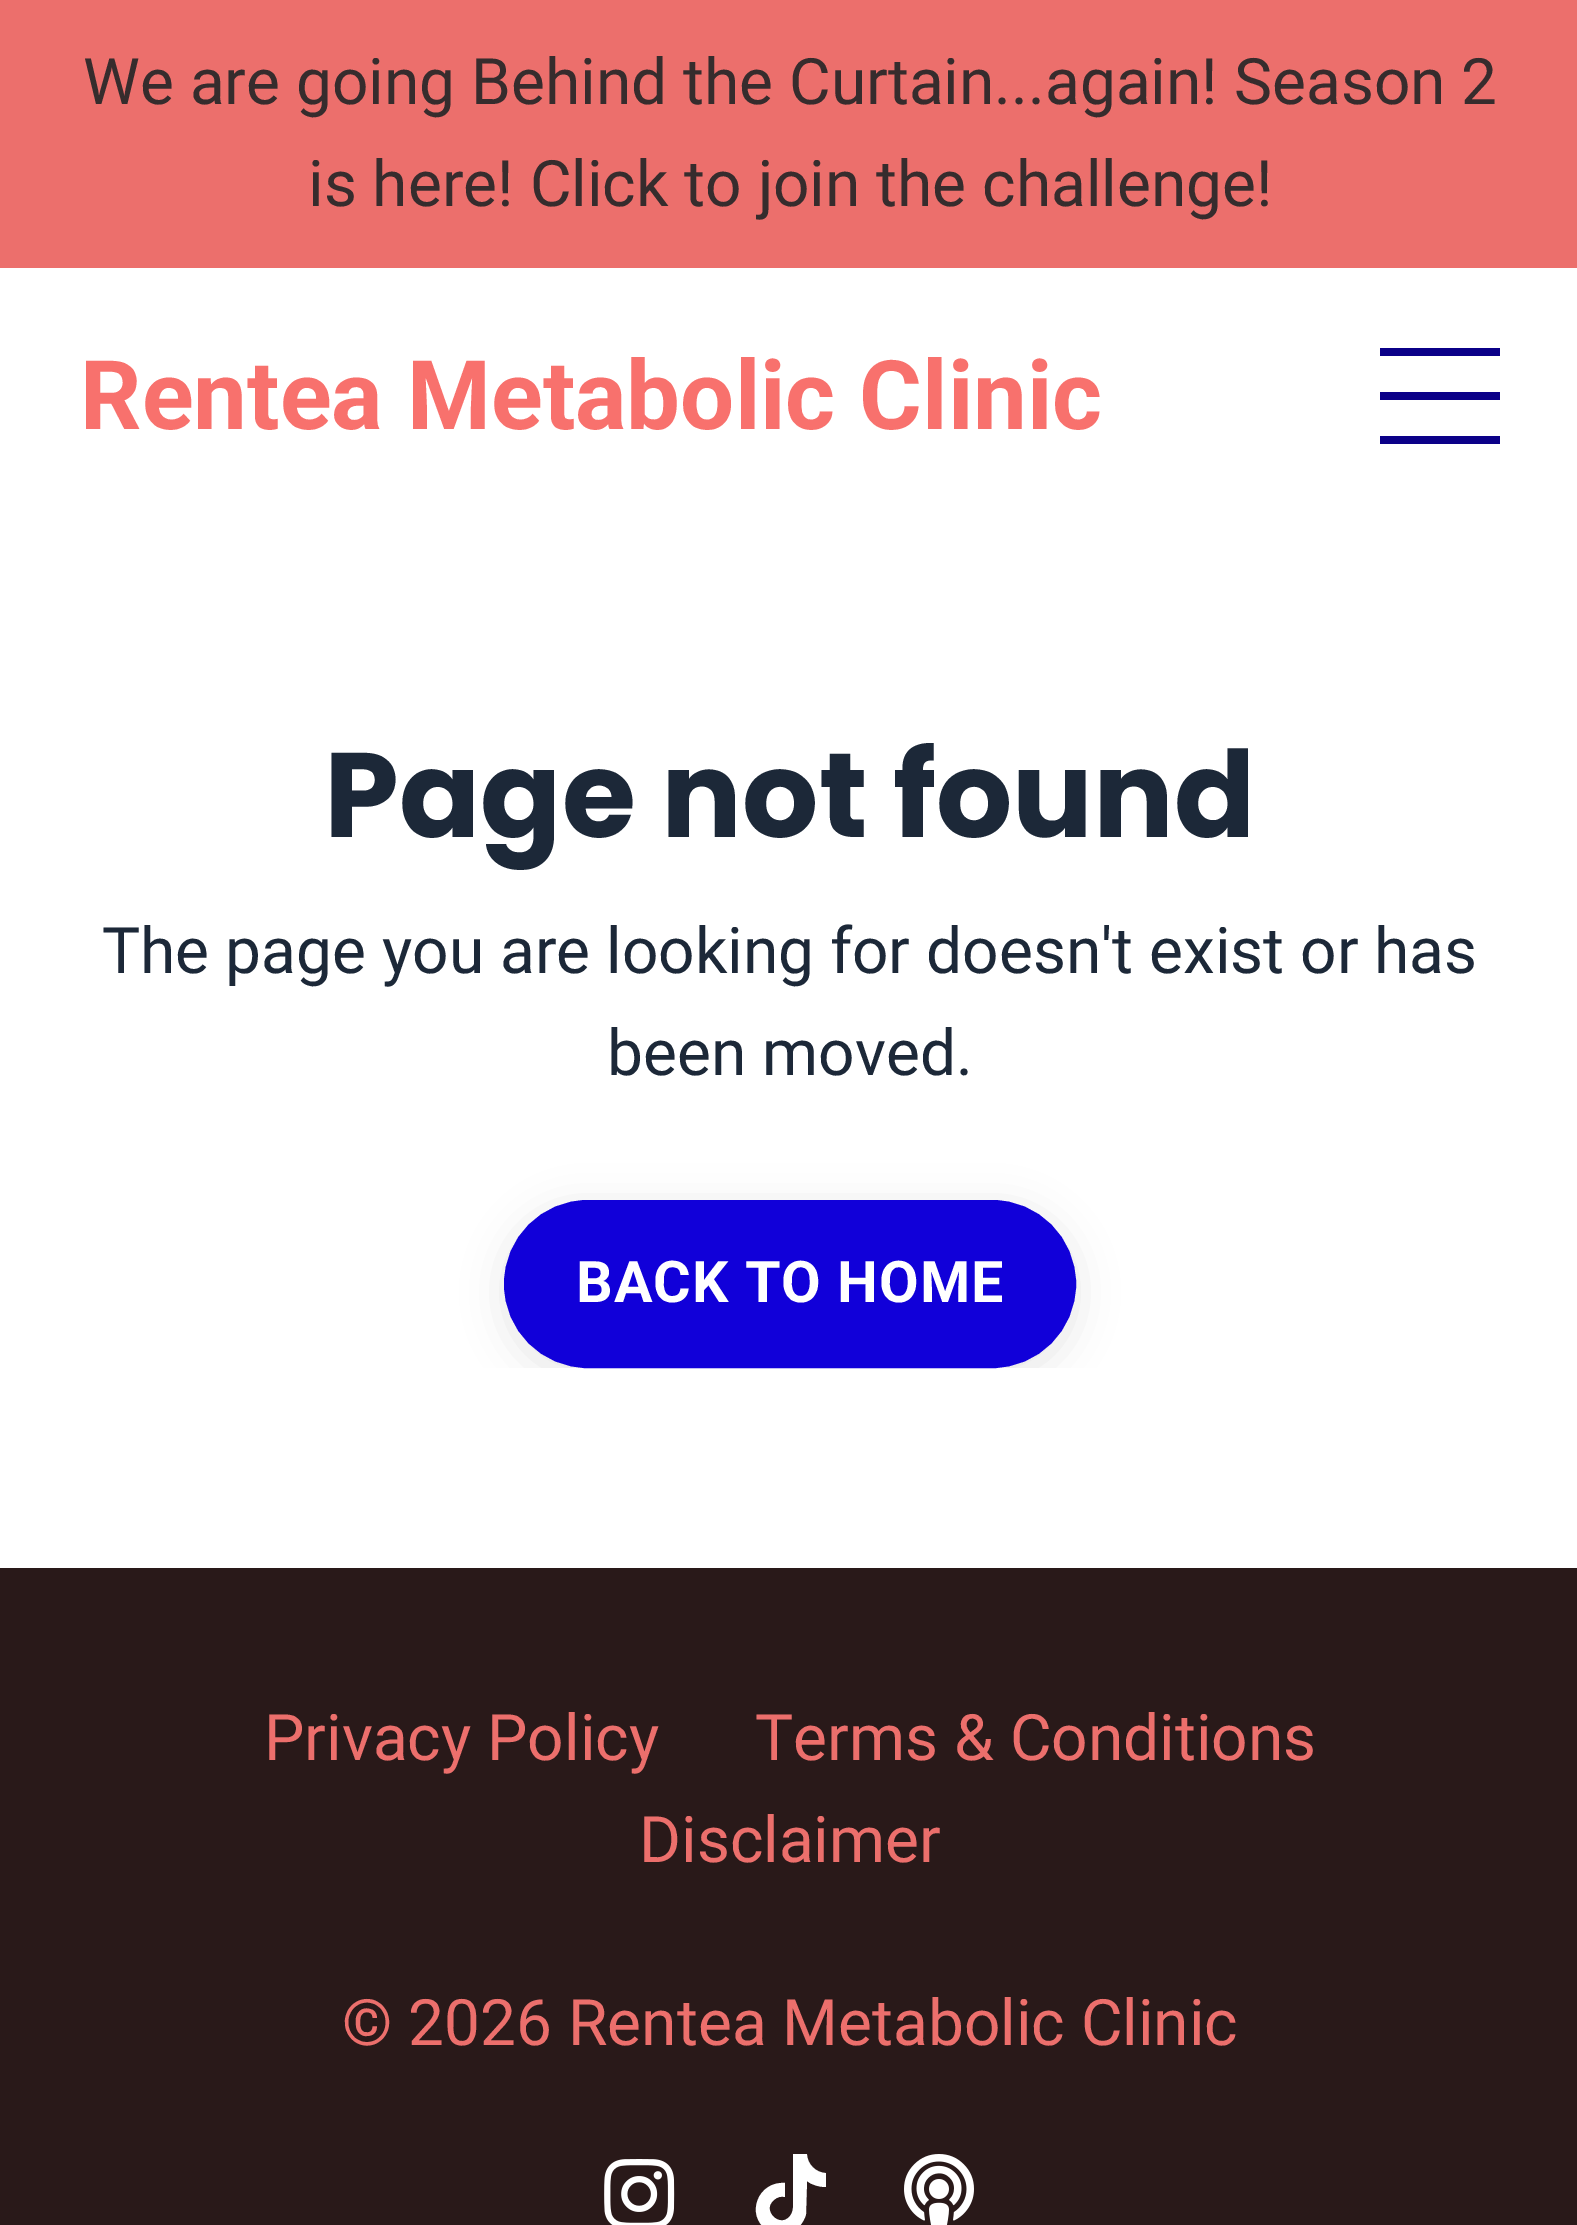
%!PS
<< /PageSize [1577 2225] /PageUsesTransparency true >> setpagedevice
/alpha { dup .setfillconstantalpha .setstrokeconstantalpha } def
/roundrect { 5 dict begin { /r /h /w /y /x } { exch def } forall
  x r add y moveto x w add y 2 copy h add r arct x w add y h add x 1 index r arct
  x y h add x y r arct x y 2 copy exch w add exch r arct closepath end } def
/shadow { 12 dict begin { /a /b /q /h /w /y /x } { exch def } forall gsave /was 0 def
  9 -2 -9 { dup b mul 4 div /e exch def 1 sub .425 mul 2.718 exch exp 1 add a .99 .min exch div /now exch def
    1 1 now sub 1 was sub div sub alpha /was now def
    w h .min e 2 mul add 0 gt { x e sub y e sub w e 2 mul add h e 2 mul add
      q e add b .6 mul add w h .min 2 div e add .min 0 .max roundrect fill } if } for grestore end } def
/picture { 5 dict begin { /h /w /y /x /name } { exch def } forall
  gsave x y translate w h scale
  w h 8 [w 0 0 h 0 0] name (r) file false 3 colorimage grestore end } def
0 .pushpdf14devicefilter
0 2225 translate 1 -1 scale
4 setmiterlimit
1 setgray
0 0 1577 2225 rectfill
0.925 0.435 0.424 setrgbcolor
0 0 1577 268 rectfill
/Roboto-Regular [64 0 0 -64 0 0] selectfont
0.212 0.173 0.176 setrgbcolor
83 104 moveto (We are going Behind the Curtain...again! Season 2) show
308 206 moveto (is here! Click to join the challenge!) show
/Roboto-Bold [96 0 0 -96 0 0] selectfont
0.973 0.443 0.427 setrgbcolor
80 429 moveto (Rentea Metabolic Clinic) show
0.043 0 0.533 setrgbcolor
1380 348 120 8 rectfill
1380 392 120 8 rectfill
1380 436 120 8 rectfill
/Poppins-Bold [120 0 0 -120 0 0] selectfont
0.11 0.157 0.22 setrgbcolor
324 837 moveto (Page not found) show
/Roboto-Regular [64 0 0 -64 0 0] selectfont
102 973 moveto (The page you are looking for doesn't exist or has) show
607 1075 moveto (been moved.) show
gsave
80 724 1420 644 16 roundrect clip newpath
0 setgray
504 1208 572 168 84 20 0.1 shadow
grestore
0.067 0 0.851 setrgbcolor
508 1204 564 160 80 roundrect gsave fill grestore
8 setlinewidth
stroke
/Roboto-Bold [57.5 0 0 -57.5 0 0] selectfont
1 setgray
576 1302 moveto 1 0 (BACK TO HOME) ashow
0.161 0.098 0.098 setrgbcolor
0 1568 1577 657 rectfill
/Roboto-Regular [64 0 0 -64 0 0] selectfont
0.925 0.435 0.424 setrgbcolor
264 1760 moveto (Privacy Policy) show
755 1760 moveto (Terms & Conditions) show
639 1862 moveto (Disclaimer) show
342 2045 moveto (© 2026 Rentea Metabolic Clinic) show
(img1.rgb) 604 2159 71 66 picture
1 setgray
newpath 826 2187 moveto 819 2187 812 2185 807 2181 curveto 806 2214 lineto 804 2223 796 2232 786 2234 curveto 780 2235 773 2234 767 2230 curveto 745 2215 758 2181 785 2183 curveto 785 2197 lineto 781 2196 777 2197 774 2200 curveto 761 2210 780 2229 790 2216 curveto 794 2211 793 2205 793 2199 curveto 793 2154 lineto 807 2154 lineto 807 2164 816 2173 826 2173 curveto closepath fill
(img2.rgb) 904 2154 70 71 picture
.poppdf14devicefilter showpage
